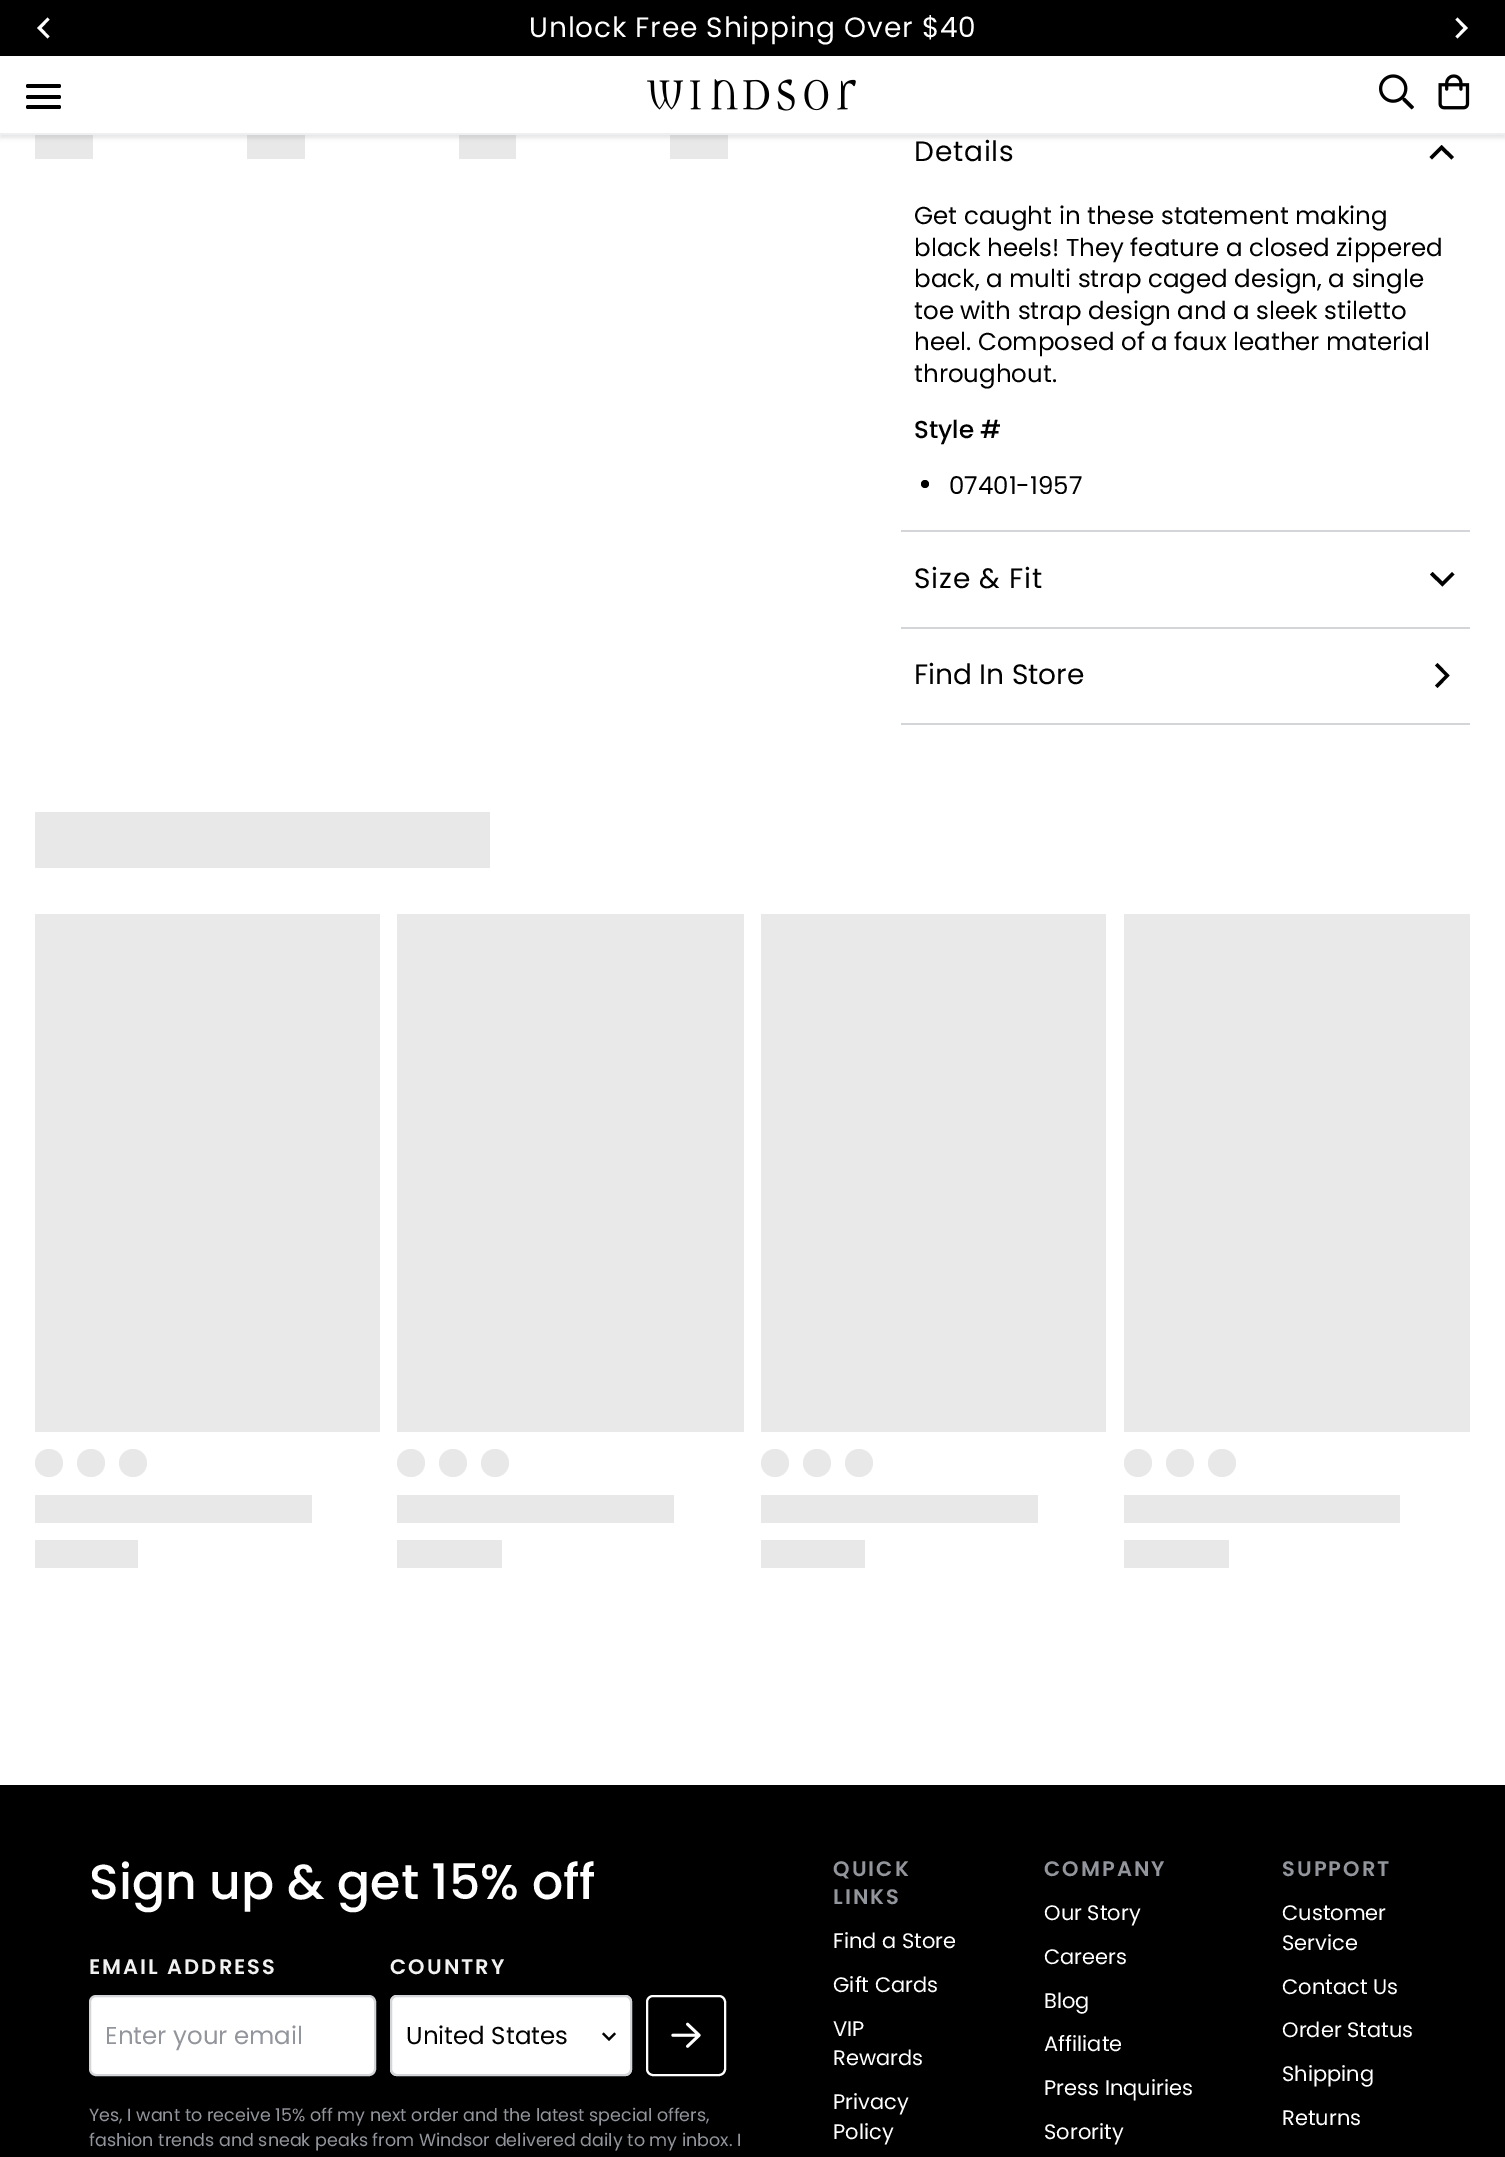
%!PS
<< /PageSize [1505 2157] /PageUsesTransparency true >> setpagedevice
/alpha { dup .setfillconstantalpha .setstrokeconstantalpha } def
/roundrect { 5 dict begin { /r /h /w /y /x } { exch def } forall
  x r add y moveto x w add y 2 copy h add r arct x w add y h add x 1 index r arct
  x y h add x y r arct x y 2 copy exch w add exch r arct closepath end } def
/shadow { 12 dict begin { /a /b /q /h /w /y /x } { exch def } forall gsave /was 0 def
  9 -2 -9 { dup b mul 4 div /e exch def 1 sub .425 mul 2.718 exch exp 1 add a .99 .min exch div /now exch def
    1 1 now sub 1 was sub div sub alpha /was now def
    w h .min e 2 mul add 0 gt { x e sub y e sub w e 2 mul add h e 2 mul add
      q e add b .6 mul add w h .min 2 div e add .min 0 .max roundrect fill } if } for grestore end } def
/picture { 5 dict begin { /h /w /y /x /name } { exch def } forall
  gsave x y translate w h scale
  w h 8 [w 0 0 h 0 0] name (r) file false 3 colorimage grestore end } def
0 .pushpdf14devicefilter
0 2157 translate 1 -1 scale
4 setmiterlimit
1 setgray
0 0 1505 2157 rectfill
0.91 setgray
35 135 58 24 rectfill
247 135 58 24 rectfill
459 135 57 24 rectfill
670 135 58 24 rectfill
0 setgray
0 60 1505 78 0 2 0.1 shadow
0 0 1505 56 rectfill
1 setgray
newpath 37 28 moveto 47.5 38.5 lineto 49.5 36.5 lineto 41.5 28 lineto 49.5 19.5 lineto 47.5 17.5 lineto closepath fill
/Poppins-Regular [28 0 0 -28 0 0] selectfont
529 37 moveto 0.85 0 (Unlock Free Shipping Over $40) ashow
newpath 1468 28 moveto 1457.5 17.5 lineto 1455.5 19.5 lineto 1463.5 28 lineto 1455.5 36.5 lineto 1457.5 38.5 lineto closepath fill
0 57 1505 76 rectfill
0.929 0.937 0.941 setrgbcolor
0 133 1505 2 rectfill
0 setgray
26 95 35 4 2 roundrect fill
26 84 35 4 2 roundrect fill
26 105 35 4 2 roundrect fill
(img1.rgb) 647 79 209 32 picture
(img2.rgb) 1379 74 35 36 picture
(img3.rgb) 1438 74 32 36 picture
0.827 0.835 0.847 setrgbcolor
901 530 569 2 rectfill
0 setgray
914 161 moveto 0.85 0 (Details) ashow
newpath 1441.5 145 moveto 1429.5 157 lineto 1432 159.5 lineto 1441.5 150 lineto 1451.5 159.5 lineto 1454 157 lineto closepath fill
/Poppins-Regular [24.5 0 0 -24.5 0 0] selectfont
914 224 moveto (Get caught in these statement making) show
914 256 moveto (black heels! They feature a closed zippered) show
914 287 moveto (back, a multi strap caged design, a single) show
914 319 moveto (toe with strap design and a sleek stiletto) show
914 350 moveto (heel. Composed of a faux leather material) show
914 382 moveto (throughout.) show
/Poppins-Medium [24.5 0 0 -24.5 0 0] selectfont
914 438 moveto (Style #) show
newpath 925 484 4 0 360 arc closepath fill
/Poppins-Regular [24.5 0 0 -24.5 0 0] selectfont
949 494 moveto (07401-1957) show
0.827 0.835 0.847 setrgbcolor
901 627 569 2 rectfill
/Poppins-Regular [28 0 0 -28 0 0] selectfont
0 setgray
914 588 moveto 0.85 0 (Size & Fit) ashow
newpath 1442.5 586.5 moveto 1454.5 574.5 lineto 1452 572 lineto 1442.5 581.5 lineto 1432.5 572 lineto 1430 574.5 lineto closepath fill
0.827 0.835 0.847 setrgbcolor
901 723 569 2 rectfill
0 setgray
914 684 moveto (Find In Store) show
newpath 1449.5 675.5 moveto 1437.5 663 lineto 1435 665.5 lineto 1445 675.5 lineto 1435 685.5 lineto 1437.5 688 lineto closepath fill
0.91 setgray
35 812 455 56 rectfill
0.914 setgray
35 914 345 518 rectfill
0.91 setgray
newpath 49 1463 14 0 360 arc closepath fill
newpath 91 1463 14 0 360 arc closepath fill
newpath 133 1463 14 0 360 arc closepath fill
35 1495 277 28 rectfill
35 1540 103 28 rectfill
0.914 setgray
397 914 347 518 rectfill
0.91 setgray
newpath 411 1463 14 0 360 arc closepath fill
newpath 453 1463 14 0 360 arc closepath fill
newpath 495 1463 14 0 360 arc closepath fill
397 1495 277 28 rectfill
397 1540 105 28 rectfill
0.914 setgray
761 914 345 518 rectfill
0.91 setgray
newpath 775 1463 14 0 360 arc closepath fill
newpath 817 1463 14 0 360 arc closepath fill
newpath 859 1463 14 0 360 arc closepath fill
761 1495 277 28 rectfill
761 1540 104 28 rectfill
0.914 setgray
1124 914 346 518 rectfill
0.91 setgray
newpath 1138 1463 14 0 360 arc closepath fill
newpath 1180 1463 14 0 360 arc closepath fill
newpath 1222 1463 14 0 360 arc closepath fill
1124 1495 276 28 rectfill
1124 1540 105 28 rectfill
0 setgray
0 1785 1505 372 rectfill
/Poppins-Medium [49 0 0 -49 0 0] selectfont
1 setgray
89 1899 moveto (Sign up & get 15% off) show
/Poppins-SemiBold [21 0 0 -21 0 0] selectfont
0.949 0.945 0.945 setrgbcolor
89 1974 moveto 2.1 0 (EMAIL ADDRESS) ashow
1 setgray
90 1996 285 79 6 roundrect gsave fill grestore
0.827 0.835 0.847 setrgbcolor
2 setlinewidth
stroke
/Poppins-Regular [24.5 0 0 -24.5 0 0] selectfont
0.573 0.584 0.608 setrgbcolor
105 2044 moveto (Enter your email) show
/Poppins-SemiBold [21 0 0 -21 0 0] selectfont
0.949 0.945 0.945 setrgbcolor
390 1974 moveto 2.1 0 (COUNTRY) ashow
1 setgray
390 1995 242 81 7 roundrect fill
(img4.rgb) 602 2032 14 9 picture
0.827 0.835 0.847 setrgbcolor
391 1996 240 79 6 roundrect stroke
/Poppins-Regular [24.5 0 0 -24.5 0 0] selectfont
0 setgray
406 2044 moveto (United States) show
1 setgray
647 1996 78 79 6 roundrect stroke
(img5.rgb) 671 2022 30 26 picture
/Poppins-Regular [17.5 0 0 -17.5 0 0] selectfont
0.573 0.584 0.608 setrgbcolor
89 2121 moveto (Yes, I want to receive 15% off my next order and the latest special offers,) show
89 2146 moveto (fashion trends and sneak peaks from Windsor delivered daily to my inbox. I) show
/Poppins-SemiBold [21 0 0 -21 0 0] selectfont
833 1876 moveto 2.1 0 (QUICK) ashow
833 1904 moveto 2.1 0 (LINKS) ashow
/Poppins-Regular [21 0 0 -21 0 0] selectfont
1 setgray
833 1948 moveto (Find a Store) show
833 1992 moveto (Gift Cards) show
833 2036 moveto (VIP) show
833 2065 moveto (Rewards) show
833 2109 moveto (Privacy) show
833 2139 moveto (Policy) show
/Poppins-SemiBold [21 0 0 -21 0 0] selectfont
0.573 0.584 0.608 setrgbcolor
1044 1876 moveto 2.1 0 (COMPANY) ashow
/Poppins-Regular [21 0 0 -21 0 0] selectfont
1 setgray
1044 1920 moveto (Our Story) show
1044 1964 moveto (Careers) show
1044 2008 moveto (Blog) show
1044 2051 moveto (Affiliate) show
1044 2095 moveto (Press Inquiries) show
1044 2139 moveto (Sorority) show
/Poppins-SemiBold [21 0 0 -21 0 0] selectfont
0.573 0.584 0.608 setrgbcolor
1282 1876 moveto 2.1 0 (SUPPORT) ashow
/Poppins-Regular [21 0 0 -21 0 0] selectfont
1 setgray
1282 1920 moveto (Customer) show
1282 1950 moveto (Service) show
1282 1994 moveto (Contact Us) show
1282 2037 moveto (Order Status) show
1282 2081 moveto (Shipping) show
1282 2125 moveto (Returns) show
.poppdf14devicefilter showpage
